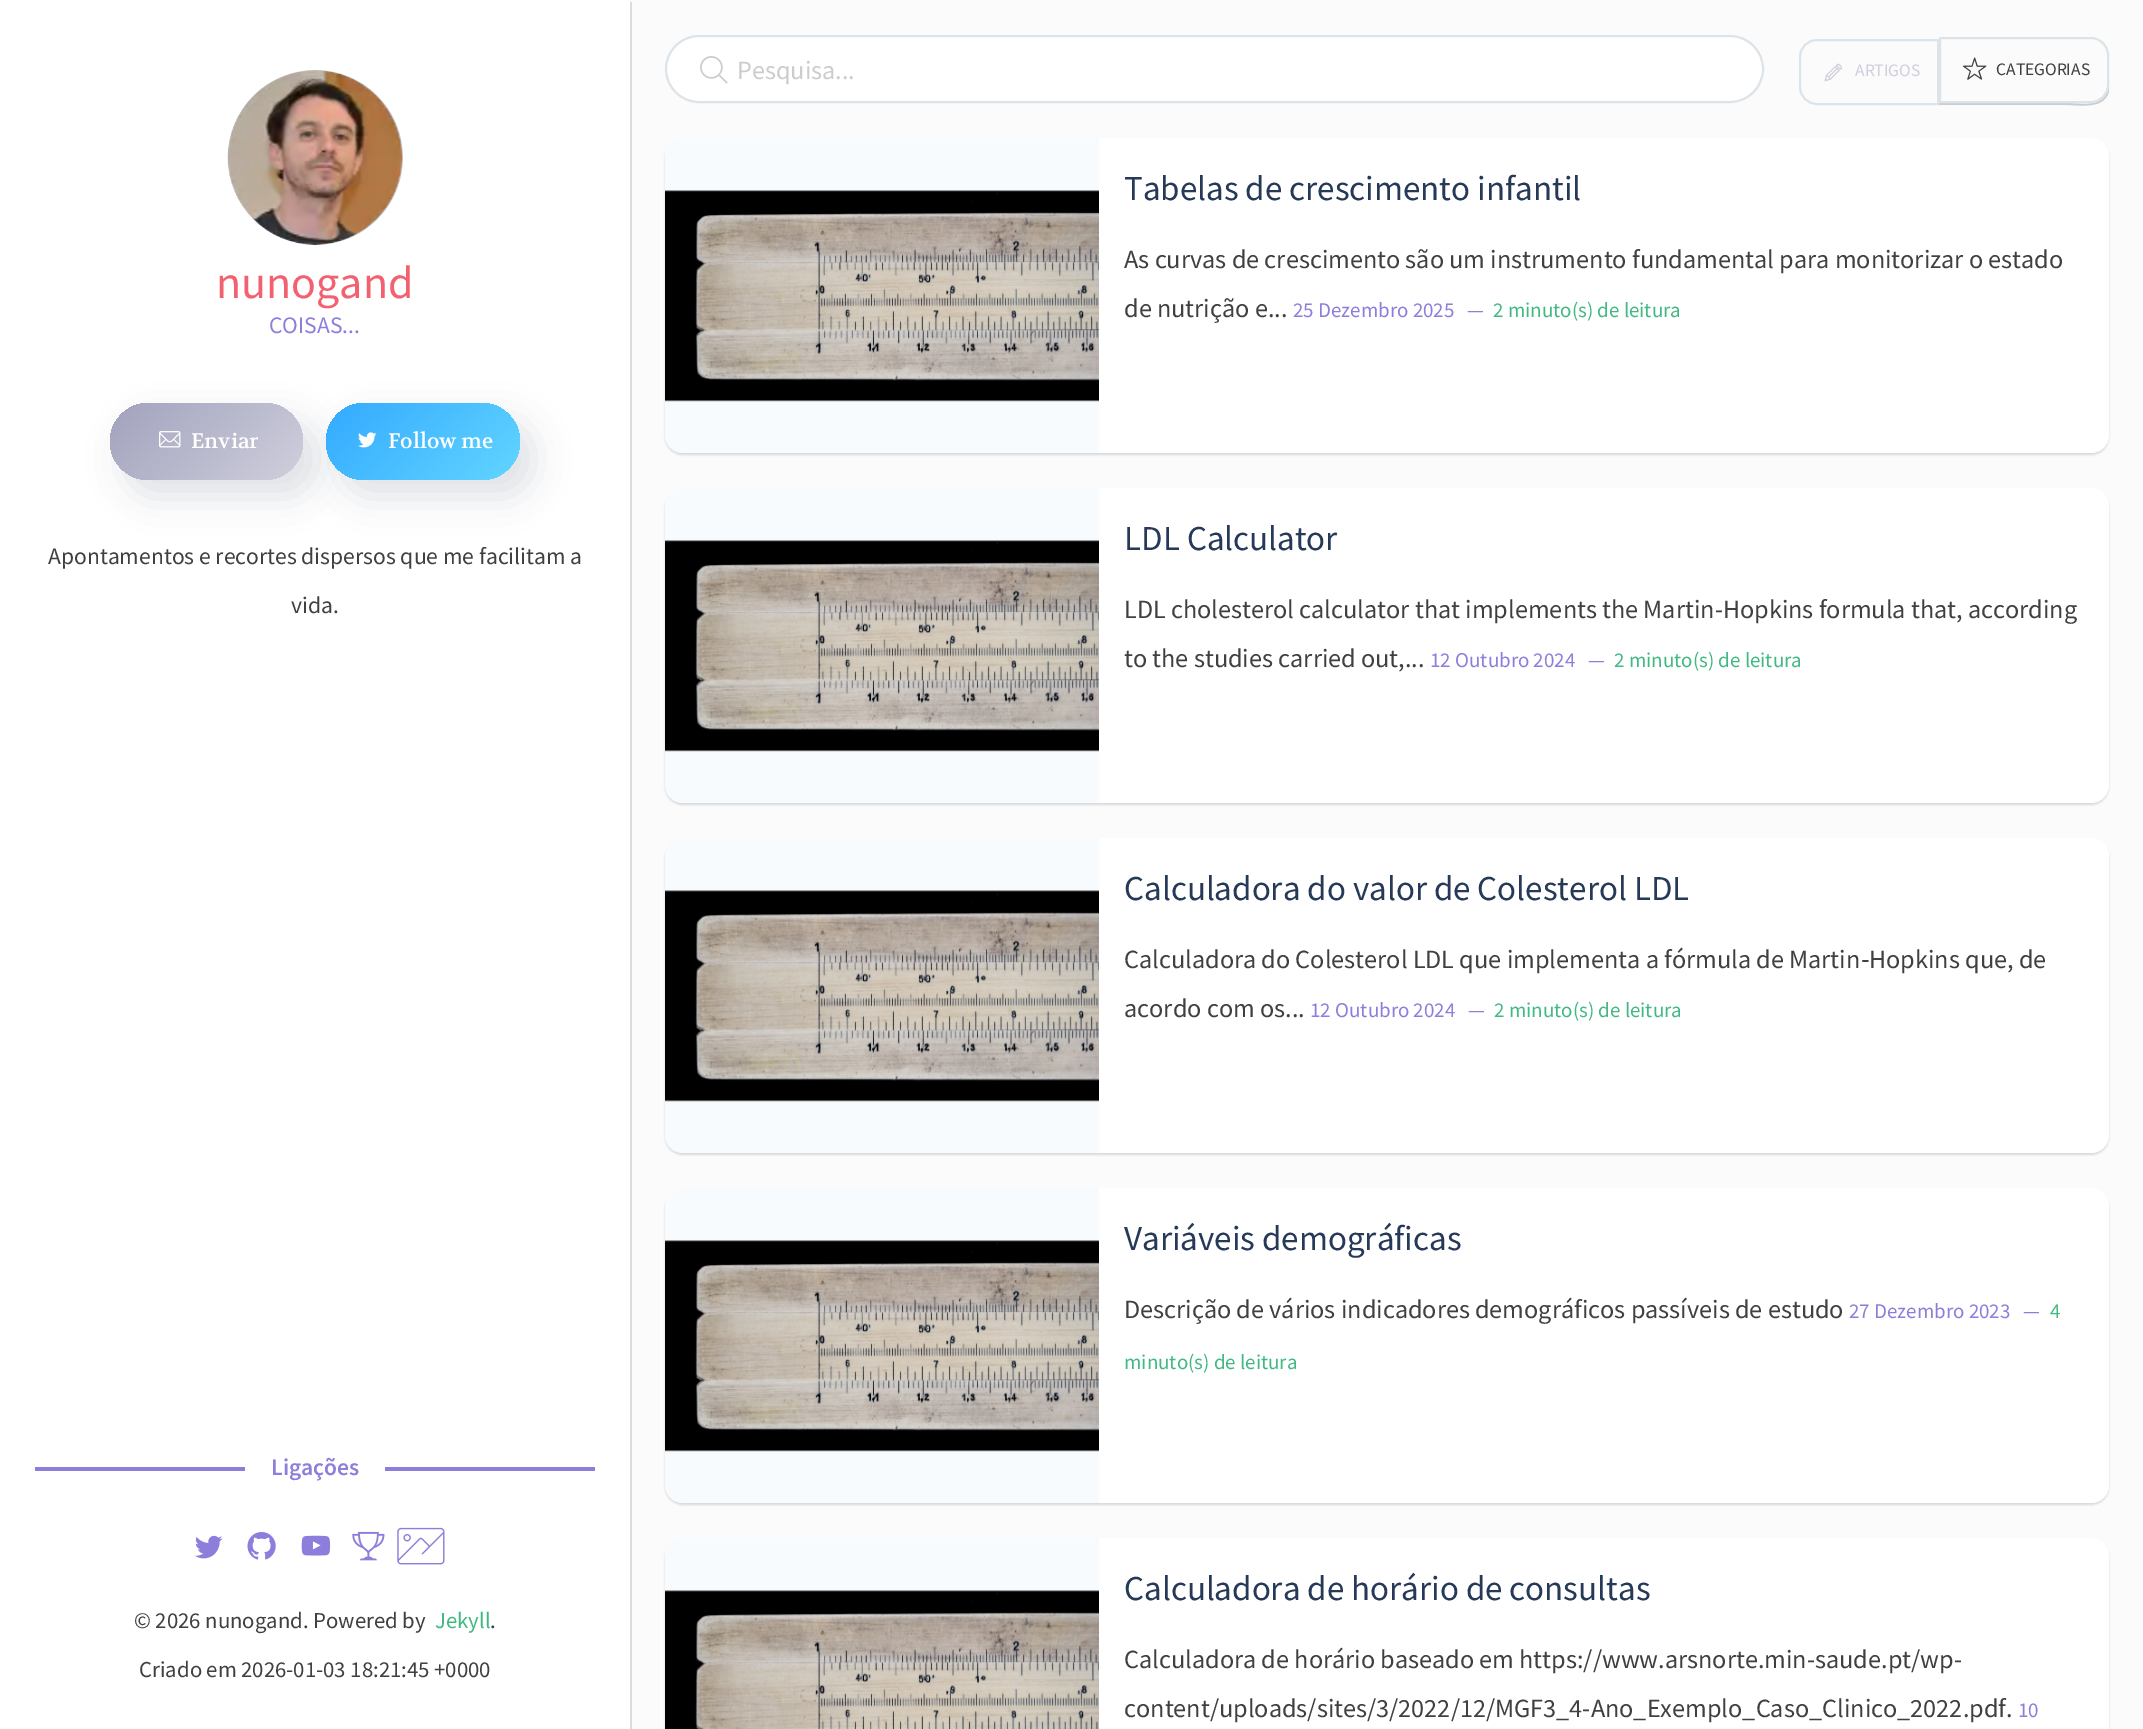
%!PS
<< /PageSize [2143 1729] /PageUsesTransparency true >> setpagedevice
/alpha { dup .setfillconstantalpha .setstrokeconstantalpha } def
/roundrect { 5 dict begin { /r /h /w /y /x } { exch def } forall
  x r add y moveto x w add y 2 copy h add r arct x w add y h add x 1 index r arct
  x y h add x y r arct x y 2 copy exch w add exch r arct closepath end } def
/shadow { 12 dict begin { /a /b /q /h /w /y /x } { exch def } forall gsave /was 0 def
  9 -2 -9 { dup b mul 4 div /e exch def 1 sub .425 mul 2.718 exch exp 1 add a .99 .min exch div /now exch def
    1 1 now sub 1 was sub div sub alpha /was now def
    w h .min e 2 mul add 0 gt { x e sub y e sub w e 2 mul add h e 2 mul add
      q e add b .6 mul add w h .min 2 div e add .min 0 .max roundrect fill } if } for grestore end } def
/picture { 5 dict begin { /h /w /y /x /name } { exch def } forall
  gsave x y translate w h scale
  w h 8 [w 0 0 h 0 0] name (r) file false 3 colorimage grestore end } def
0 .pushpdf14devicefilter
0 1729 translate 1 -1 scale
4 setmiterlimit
0.984 setgray
0 0 2143 1729 rectfill
0.855 0.859 0.863 setrgbcolor
newpath 2 1729 moveto 2 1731 lineto 632 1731 lineto 632 2 lineto 630 2 lineto 630 1729 lineto closepath fill
1 setgray
0 0 630 1729 rectfill
0.812 0.812 0.867 setrgbcolor
newpath 315.5 157.5 87.5 0 360 arc closepath fill
(img1.rgb) 227 70 176 175 picture
/SourceSansPro-Regular [46 0 0 -46 0 0] selectfont
0.953 0.38 0.439 setrgbcolor
216 298 moveto (nunogand) show
/SourceSansPro-Regular [23.6 0 0 -23.6 0 0] selectfont
0.553 0.494 0.863 setrgbcolor
269 333 moveto (COISAS...) show
0.18 0.239 0.286 setrgbcolor
124 420 193 77 38.5 17.5 0.15 shadow
gsave 110 403 193 77 38.5 roundrect clip newpath
<< /ShadingType 2 /ColorSpace /DeviceRGB /Coords [139 374 274 508] /Extend [true true] /Function << /FunctionType 2 /Domain [0 1] /C0 [0.635 0.635 0.741] /C1 [0.812 0.812 0.867] /N 1 >> >> shfill grestore
(img2.rgb) 159 431 22 17 picture
/Volkhov-Regular [21 0 0 -21 0 0] selectfont
1 setgray
191 448 moveto (Enviar) show
0.18 0.239 0.286 setrgbcolor
340 420 194 77 38.5 17.5 0.15 shadow
gsave 326 403 194 77 38.5 roundrect clip newpath
<< /ShadingType 2 /ColorSpace /DeviceRGB /Coords [355 373 490 509] /Extend [true true] /Function << /FunctionType 2 /Domain [0 1] /C0 [0.2 0.667 1] /C1 [0.384 0.835 1] /N 1 >> >> shfill grestore
(img3.rgb) 358 432 19 16 picture
1 setgray
388 448 moveto (Follow me) show
/SourceSansPro-Regular [23.6 0 0 -23.6 0 0] selectfont
0.251 setgray
48 564 moveto (Apontamentos e recortes dispersos que me facilitam a) show
291 613 moveto (vida.) show
0.553 0.494 0.863 setrgbcolor
35 1467 210 4 rectfill
/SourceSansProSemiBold-SemiBold [23.6 0 0 -23.6 0 0] selectfont
271 1475 moveto (Ligações) show
385 1467 210 4 rectfill
(img4.rgb) 195 1535 28 24 picture
(img5.rgb) 247 1532 29 28 picture
(img6.rgb) 301 1535 30 21 picture
(img7.rgb) 352 1531 33 30 picture
(img8.rgb) 397 1527 48 38 picture
/SourceSansPro-Regular [22.75 0 0 -22.75 0 0] selectfont
0.251 setgray
134 1628 moveto (© 2026 nunogand. Powered by) show
0.259 0.725 0.514 setrgbcolor
435 1628 moveto (Jekyll) show
0.251 setgray
490 1628 moveto (.) show
139 1677 moveto (Criado em 2026-01-03 18:21:45 +0000) show
1 setgray
666 36 1097 66 33 roundrect gsave fill grestore
0.863 0.894 0.918 setrgbcolor
2 setlinewidth
stroke
(img9.rgb) 700 56 28 28 picture
/SourceSansPro-Regular [26.25 0 0 -26.25 0 0] selectfont
0.8 setgray
737 79 moveto (Pesquisa...) show
0.863 0.894 0.918 setrgbcolor
newpath 1817 40 moveto 1938 40 lineto 1938 104 lineto 1817 104 lineto 1807.5 104 1800 96.5 1800 87 curveto 1800 57 lineto 1800 47.5 1807.5 40 1817 40 curveto closepath stroke
(img10.rgb) 1824 63 19 19 picture
/SourceSansPro-Regular [17.5 0 0 -17.5 0 0] selectfont
0.812 0.812 0.867 setrgbcolor
1855 76 moveto (ARTIGOS) show
0.796 0.804 0.808 setrgbcolor
newpath 1939 103 moveto 1939 105 lineto 2066 105 lineto 2079 105 2105 110 2109 91 curveto 2109 54 lineto 2108 89 lineto 2104 109 2079 103 2066 103 curveto closepath fill
0.863 0.894 0.918 setrgbcolor
newpath 1940 38 moveto 2091 38 lineto 2100.5 38 2108 45.5 2108 55 curveto 2108 85 lineto 2108 94.5 2100.5 102 2091 102 curveto 1940 102 lineto closepath stroke
(img11.rgb) 1963 57 24 23 picture
0.251 setgray
1996 75 moveto (CATEGORIAS) show
0.122 0.137 0.18 setrgbcolor
665 140 1444 315 18 1 0.15 shadow
1 setgray
665 138 1444 315 18 roundrect fill
0.2 alpha
0.863 0.922 0.961 setrgbcolor
newpath 683 138 moveto 1099 138 lineto 1099 453 lineto 683 453 lineto 673 453 665 445 665 435 curveto 665 156 lineto 665 146 673 138 683 138 curveto closepath fill
1 alpha
(img12.rgb) 665 190 434 212 picture
/SourceSansPro-Regular [35 0 0 -35 0 0] selectfont
0.149 0.224 0.349 setrgbcolor
1124 200 moveto (Tabelas de crescimento infantil) show
/SourceSansPro-Regular [26.25 0 0 -26.25 0 0] selectfont
0.251 setgray
1124 268 moveto (As curvas de crescimento são um instrumento fundamental para monitorizar o estado) show
1124 317 moveto (de nutrição e...) show
/SourceSansPro-Regular [21 0 0 -21 0 0] selectfont
0.553 0.494 0.863 setrgbcolor
1293 317 moveto (25 Dezembro 2025   —) show
0.259 0.725 0.514 setrgbcolor
1493 317 moveto (2 minuto\(s\) de leitura) show
0.122 0.137 0.18 setrgbcolor
665 490 1444 315 18 1 0.15 shadow
1 setgray
665 488 1444 315 18 roundrect fill
0.2 alpha
0.863 0.922 0.961 setrgbcolor
newpath 683 488 moveto 1099 488 lineto 1099 803 lineto 683 803 lineto 673 803 665 795 665 785 curveto 665 506 lineto 665 496 673 488 683 488 curveto closepath fill
1 alpha
(img12.rgb) 665 540 434 212 picture
/SourceSansPro-Regular [35 0 0 -35 0 0] selectfont
0.149 0.224 0.349 setrgbcolor
1124 550 moveto (LDL Calculator) show
/SourceSansPro-Regular [26.25 0 0 -26.25 0 0] selectfont
0.251 setgray
1124 618 moveto (LDL cholesterol calculator that implements the Martin-Hopkins formula that, according) show
1124 667 moveto (to the studies carried out,...) show
/SourceSansPro-Regular [21 0 0 -21 0 0] selectfont
0.553 0.494 0.863 setrgbcolor
1430 667 moveto (12 Outubro 2024   —) show
0.259 0.725 0.514 setrgbcolor
1614 667 moveto (2 minuto\(s\) de leitura) show
0.122 0.137 0.18 setrgbcolor
665 840 1444 315 18 1 0.15 shadow
1 setgray
665 838 1444 315 18 roundrect fill
0.2 alpha
0.863 0.922 0.961 setrgbcolor
newpath 683 838 moveto 1099 838 lineto 1099 1153 lineto 683 1153 lineto 673 1153 665 1145 665 1135 curveto 665 856 lineto 665 846 673 838 683 838 curveto closepath fill
1 alpha
(img13.rgb) 665 890 434 212 picture
/SourceSansPro-Regular [35 0 0 -35 0 0] selectfont
0.149 0.224 0.349 setrgbcolor
1124 900 moveto (Calculadora do valor de Colesterol LDL) show
/SourceSansPro-Regular [26.25 0 0 -26.25 0 0] selectfont
0.251 setgray
1124 968 moveto (Calculadora do Colesterol LDL que implementa a fórmula de Martin) show
/LiberationSans-Regular [26.25 0 0 -26.25 0 0] selectfont
1861 968 moveto (‐) show
/SourceSansPro-Regular [26.25 0 0 -26.25 0 0] selectfont
1869 968 moveto (Hopkins que, de) show
1124 1017 moveto (acordo com os...) show
/SourceSansPro-Regular [21 0 0 -21 0 0] selectfont
0.553 0.494 0.863 setrgbcolor
1310 1017 moveto (12 Outubro 2024   —) show
0.259 0.725 0.514 setrgbcolor
1494 1017 moveto (2 minuto\(s\) de leitura) show
0.122 0.137 0.18 setrgbcolor
665 1190 1444 315 18 1 0.15 shadow
1 setgray
665 1188 1444 315 18 roundrect fill
0.2 alpha
0.863 0.922 0.961 setrgbcolor
newpath 683 1188 moveto 1099 1188 lineto 1099 1503 lineto 683 1503 lineto 673 1503 665 1495 665 1485 curveto 665 1206 lineto 665 1196 673 1188 683 1188 curveto closepath fill
1 alpha
(img12.rgb) 665 1240 434 212 picture
/SourceSansPro-Regular [35 0 0 -35 0 0] selectfont
0.149 0.224 0.349 setrgbcolor
1124 1250 moveto (Variáveis demográficas) show
/SourceSansPro-Regular [26.25 0 0 -26.25 0 0] selectfont
0.251 setgray
1124 1318 moveto (Descrição de vários indicadores demográficos passíveis de estudo) show
/SourceSansPro-Regular [21 0 0 -21 0 0] selectfont
0.553 0.494 0.863 setrgbcolor
1849 1318 moveto (27 Dezembro 2023   —) show
0.259 0.725 0.514 setrgbcolor
2050 1318 moveto (4) show
1124 1369 moveto (minuto\(s\) de leitura) show
0.122 0.137 0.18 setrgbcolor
665 1540 1444 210 18 1 0.15 shadow
1 setgray
665 1538 1444 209 18 roundrect fill
0.2 alpha
0.863 0.922 0.961 setrgbcolor
newpath 683 1538 moveto 1099 1538 lineto 1099 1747 lineto 683 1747 lineto 673 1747 665 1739 665 1729 curveto 665 1556 lineto 665 1546 673 1538 683 1538 curveto closepath fill
1 alpha
(img14.rgb) 665 1590 434 139 picture
/SourceSansPro-Regular [35 0 0 -35 0 0] selectfont
0.149 0.224 0.349 setrgbcolor
1124 1600 moveto (Calculadora de horário de consultas) show
/SourceSansPro-Regular [26.25 0 0 -26.25 0 0] selectfont
0.251 setgray
1124 1668 moveto (Calculadora de horário baseado em https://www.arsnorte.min-saude.pt/wp-) show
1124 1717 moveto (content/uploads/sites/3/2022/12/MGF3_4-Ano_Exemplo_Caso_Clinico_2022.pdf.) show
/SourceSansPro-Regular [21 0 0 -21 0 0] selectfont
0.553 0.494 0.863 setrgbcolor
2018 1717 moveto (10) show
.poppdf14devicefilter showpage
